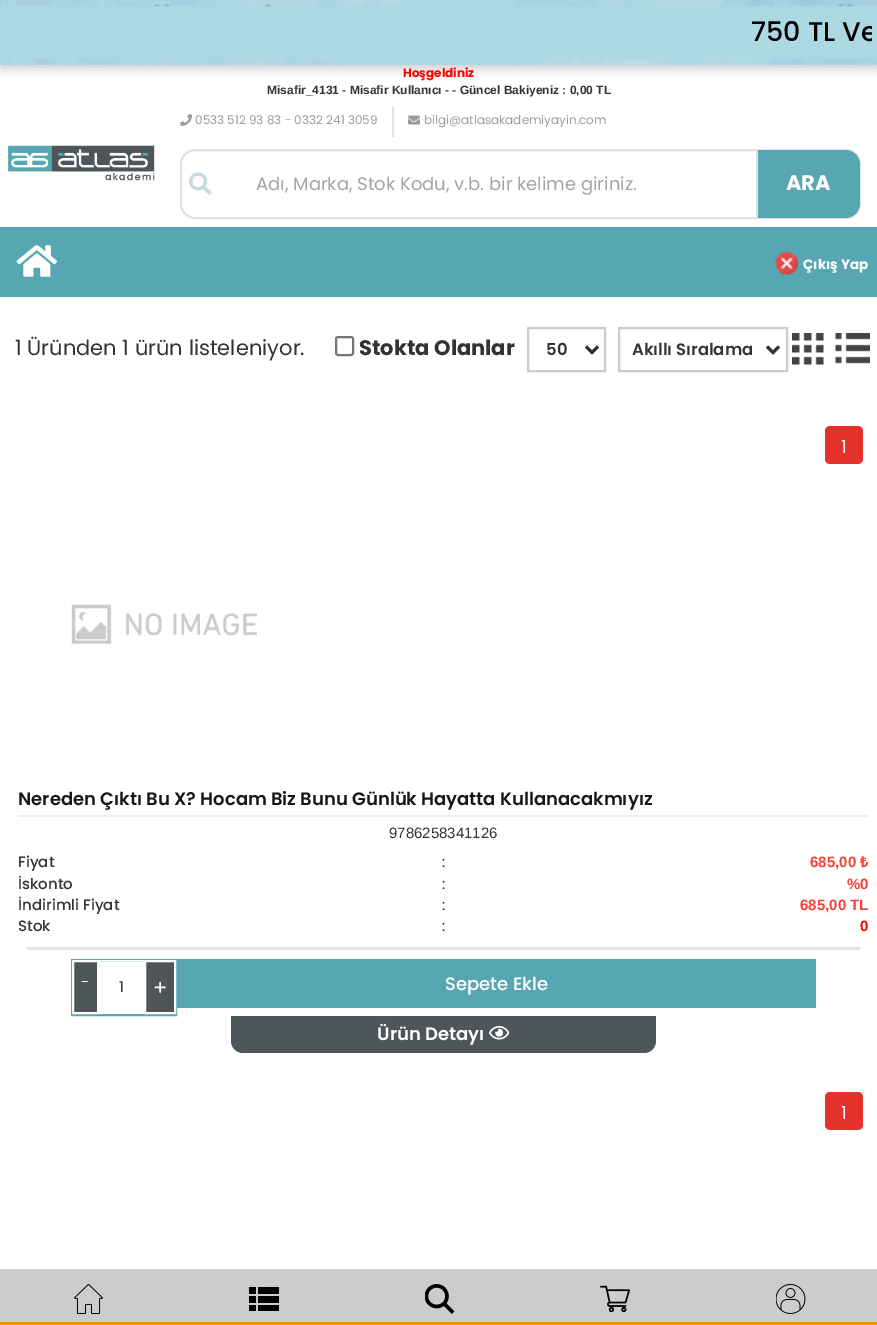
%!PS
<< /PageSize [877 1325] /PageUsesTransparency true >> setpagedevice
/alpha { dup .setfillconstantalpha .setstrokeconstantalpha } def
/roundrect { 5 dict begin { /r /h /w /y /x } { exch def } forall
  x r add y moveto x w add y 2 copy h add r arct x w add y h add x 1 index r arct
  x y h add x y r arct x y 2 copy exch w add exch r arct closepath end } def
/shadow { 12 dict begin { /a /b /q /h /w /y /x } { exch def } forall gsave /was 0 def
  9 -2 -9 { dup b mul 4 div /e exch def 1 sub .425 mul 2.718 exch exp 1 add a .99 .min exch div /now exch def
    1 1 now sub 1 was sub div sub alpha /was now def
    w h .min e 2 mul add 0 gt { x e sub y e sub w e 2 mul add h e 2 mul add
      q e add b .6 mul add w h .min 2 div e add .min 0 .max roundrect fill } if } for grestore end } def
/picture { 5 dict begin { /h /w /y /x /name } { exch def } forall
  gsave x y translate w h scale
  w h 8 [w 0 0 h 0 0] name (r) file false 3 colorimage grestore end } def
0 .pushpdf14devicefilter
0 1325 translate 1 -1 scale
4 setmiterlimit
1 setgray
0 0 877 1325 rectfill
0.8 setgray
0 5 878 64 0 5 1 shadow
0.69 0.847 0.886 setrgbcolor
0 64 877 1 rectfill
(img1.rgb) 0 0 877 65 picture
gsave
6 6 866 45 rectclip
/Poppins-Medium [27 0 0 -27 0 0] selectfont
0 setgray
751 41 moveto (750 TL Ve) show
grestore
/Poppins-Bold [12 0 0 -12 0 0] selectfont
1 0 0 setrgbcolor
403 77 moveto (Hoşgeldiniz) show
/LiberationSans-Bold [12 0 0 -12 0 0] selectfont
0.2 setgray
267 94 moveto (Misafir_4131 - Misafir Kullanıcı - - Güncel Bakiyeniz : 0,00 TL) show
(img2.rgb) 8 145 147 36 picture
0.886 setgray
392 107 2 30 rectfill
(img3.rgb) 180 114 12 12 picture
/Poppins-Regular [12 0 0 -12 0 0] selectfont
0.608 setgray
195 124 moveto (0533 512 93 83 - 0332 241 3059) show
(img4.rgb) 408 115 12 10 picture
424 124 moveto (bilgi@atlasakademiyayin.com) show
0.886 setgray
2 setlinewidth
181 150 679 68 14 roundrect stroke
(img5.rgb) 189 172 23 23 picture
/Poppins-Regular [18 0 0 -18 0 0] selectfont
0.639 setgray
256 190 moveto (Adı, Marka, Stok Kodu, v.b. bir kelime giriniz.) show
0.341 0.655 0.698 setrgbcolor
newpath 756 150 moveto 845 150 lineto 853.5 150 860 156.5 860 165 curveto 860 203 lineto 860 211.5 853.5 218 845 218 curveto 756 218 lineto closepath fill
0.878 setgray
756 150 2 68 rectfill
/Poppins-Bold [21 0 0 -21 0 0] selectfont
1 setgray
786 190 moveto (ARA) show
0.8 setgray
0 1269 877 53 rectfill
0.953 0.573 0 setrgbcolor
0 1322 877 3 rectfill
(img6.rgb) 74 1284 29 30 picture
0 setgray
249 1287 7 7 rectfill
258 1287 21 7 rectfill
249 1296 7 7 rectfill
258 1296 21 7 rectfill
249 1305 7 6 rectfill
258 1305 21 6 rectfill
(img7.rgb) 425 1284 30 30 picture
(img8.rgb) 600 1285 30 28 picture
(img9.rgb) 776 1284 30 30 picture
0.341 0.655 0.698 setrgbcolor
0 227 877 70 rectfill
(img10.rgb) 16 245 41 32 picture
(img11.rgb) 775 252 23 23 picture
/Poppins-Bold [13.5 0 0 -13.5 0 0] selectfont
1 setgray
803 269 moveto (Çıkış Yap) show
/Poppins-Regular [21 0 0 -21 0 0] selectfont
0.2 setgray
15 355 moveto (1 Üründen 1 ürün listeleniyor.) show
0.463 setgray
336 337 17 18 2 roundrect stroke
/Poppins-Bold [21 0 0 -21 0 0] selectfont
0.2 setgray
359 355 moveto (Stokta Olanlar) show
0.8 setgray
528 328 77 43 rectstroke
0.2 setgray
3 setlinewidth
newpath 586 346.5 moveto 592 352.5 lineto 598 346.5 lineto stroke
/Poppins-SemiBold [16.5 0 0 -16.5 0 0] selectfont
546 355 moveto (50) show
0.8 setgray
2 setlinewidth
619 328 168 43 rectstroke
0.2 setgray
3 setlinewidth
newpath 767 346.5 moveto 773 352.5 lineto 779 346.5 lineto stroke
632 355 moveto (Akıllı Sıralama) show
(img12.rgb) 792 333 32 32 picture
(img13.rgb) 835 333 35 31 picture
0.898 0.196 0.176 setrgbcolor
825 426 38 38 5 roundrect fill
/Poppins-Regular [18 0 0 -18 0 0] selectfont
1 setgray
841 453 moveto (1) show
(img14.rgb) 71 604 186 40 picture
0.933 setgray
18 815 851 2 rectfill
/Poppins-SemiBold [18 0 0 -18 0 0] selectfont
0.09 setgray
18 805 moveto (Nereden Çıktı Bu X? Hocam Biz Bunu Günlük Hayatta Kullanacakmıyız) show
/LiberationSans-Regular [15 0 0 -15 0 0] selectfont
0.2 setgray
389 838 moveto (9786258341126) show
/Poppins-Medium [15 0 0 -15 0 0] selectfont
18 867 moveto (Fiyat) show
/Poppins-Regular [15 0 0 -15 0 0] selectfont
442 867 moveto (:) show
/LiberationSans-Bold [15 0 0 -15 0 0] selectfont
0.957 0.263 0.212 setrgbcolor
810 867 moveto (685,00) show
/NotoSans-Bold [15 0 0 -15 0 0] selectfont
860 867 moveto (₺) show
/Poppins-Medium [15 0 0 -15 0 0] selectfont
0.2 setgray
18 889 moveto (İskonto) show
/Poppins-Regular [15 0 0 -15 0 0] selectfont
442 889 moveto (:) show
/LiberationSans-Bold [15 0 0 -15 0 0] selectfont
0.957 0.263 0.212 setrgbcolor
847 889 moveto (%0) show
/Poppins-Medium [15 0 0 -15 0 0] selectfont
0.2 setgray
18 910 moveto (İndirimli Fiyat) show
/Poppins-Regular [15 0 0 -15 0 0] selectfont
442 910 moveto (:) show
/LiberationSans-Bold [15 0 0 -15 0 0] selectfont
0.957 0.263 0.212 setrgbcolor
800 910 moveto (685,00 TL) show
/Poppins-Medium [15 0 0 -15 0 0] selectfont
0.2 setgray
18 931 moveto (Stok) show
/Poppins-Regular [15 0 0 -15 0 0] selectfont
442 931 moveto (:) show
/LiberationSans-Bold [15 0 0 -15 0 0] selectfont
1 0 0 setrgbcolor
860 931 moveto (0) show
0.894 setgray
27 947 833 3 rectfill
0.341 0.655 0.698 setrgbcolor
2 setlinewidth
72 960 104 55 rectstroke
0.306 0.337 0.349 setrgbcolor
newpath 73 961 moveto 98 961 lineto 98 1013 lineto 73 1013 lineto closepath gsave fill grestore
1 setgray
stroke
/Poppins-Regular [15 0 0 -15 0 0] selectfont
81 987 moveto (-) show
99 960 45 1 rectfill
0.2 setgray
119 992 moveto (1) show
0.306 0.337 0.349 setrgbcolor
newpath 145 961 moveto 175 961 lineto 175 1013 lineto 145 1013 lineto closepath gsave fill grestore
1 setgray
stroke
/Poppins-Regular [21 0 0 -21 0 0] selectfont
153 995 moveto (+) show
0.341 0.655 0.698 setrgbcolor
177 959 639 49 rectfill
/Poppins-Medium [18 0 0 -18 0 0] selectfont
1 setgray
445 990 moveto (Sepete Ekle) show
0.306 0.337 0.349 setrgbcolor
newpath 231 1016 moveto 656 1016 lineto 656 1041 lineto 656 1047.5 650.5 1053 644 1053 curveto 243 1053 lineto 236.5 1053 231 1047.5 231 1041 curveto closepath fill
/Poppins-SemiBold [18 0 0 -18 0 0] selectfont
1 setgray
377 1040 moveto (Ürün Detayı) show
(img15.rgb) 489 1026 21 14 picture
0.898 0.196 0.176 setrgbcolor
825 1092 38 38 5 roundrect fill
/Poppins-Regular [18 0 0 -18 0 0] selectfont
1 setgray
841 1119 moveto (1) show
.poppdf14devicefilter showpage
